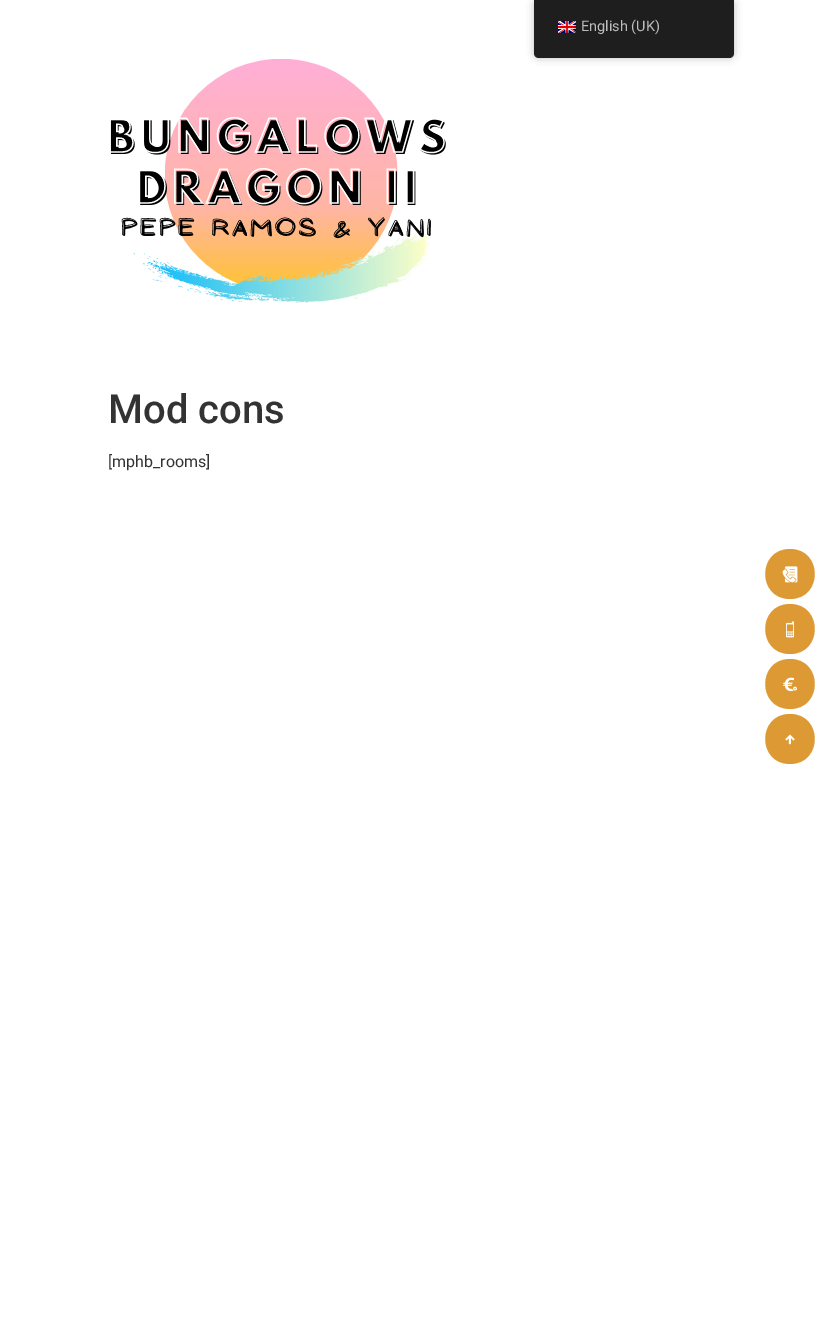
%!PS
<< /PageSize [815 1318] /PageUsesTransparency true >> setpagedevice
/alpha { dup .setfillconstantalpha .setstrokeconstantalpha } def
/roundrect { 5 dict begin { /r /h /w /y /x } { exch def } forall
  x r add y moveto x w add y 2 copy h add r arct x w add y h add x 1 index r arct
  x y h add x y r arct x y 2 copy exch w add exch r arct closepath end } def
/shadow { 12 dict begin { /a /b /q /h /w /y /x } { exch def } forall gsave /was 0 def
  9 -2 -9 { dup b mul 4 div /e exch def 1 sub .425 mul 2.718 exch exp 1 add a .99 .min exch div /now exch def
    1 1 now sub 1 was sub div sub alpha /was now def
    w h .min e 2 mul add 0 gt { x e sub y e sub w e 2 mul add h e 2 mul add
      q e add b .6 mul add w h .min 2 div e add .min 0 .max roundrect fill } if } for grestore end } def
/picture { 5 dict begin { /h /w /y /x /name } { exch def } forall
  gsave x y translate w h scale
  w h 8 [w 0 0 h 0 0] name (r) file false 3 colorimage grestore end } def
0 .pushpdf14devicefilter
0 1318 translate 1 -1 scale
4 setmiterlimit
1 setgray
0 0 815 1318 rectfill
0 setgray
534 0 200 58 5 4 0.25 shadow
0.118 setgray
newpath 534 0 moveto 734 0 lineto 734 53 lineto 734 56 732 58 729 58 curveto 539 58 lineto 536 58 534 56 534 53 curveto closepath fill
(img1.rgb) 558 21 18 12 picture
/Roboto-Regular [14.5 0 0 -14.5 0 0] selectfont
0.741 setgray
581 31 moveto (English \(UK\)) show
(img2.rgb) 110 59 336 244 picture
/Roboto-Medium [40 0 0 -40 0 0] selectfont
0.2 setgray
108 423 moveto (Mod cons) show
/Roboto-Regular [16 0 0 -16 0 0] selectfont
108 467 moveto ([mphb_rooms]) show
0.867 0.6 0.2 setrgbcolor
newpath 790 549 moveto 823 549 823 599 790 599 curveto 757 599 757 549 790 549 curveto closepath fill
(img3.rgb) 782 566 16 17 picture
newpath 790 604 moveto 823 604 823 654 790 654 curveto 757 654 757 604 790 604 curveto closepath fill
(img4.rgb) 786 621 8 17 picture
newpath 790 659 moveto 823 659 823 709 790 709 curveto 757 709 757 659 790 659 curveto closepath fill
(img5.rgb) 783 677 14 15 picture
newpath 790 714 moveto 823 714 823 764 790 764 curveto 757 764 757 714 790 714 curveto closepath fill
(img6.rgb) 785 734 10 11 picture
.poppdf14devicefilter showpage
